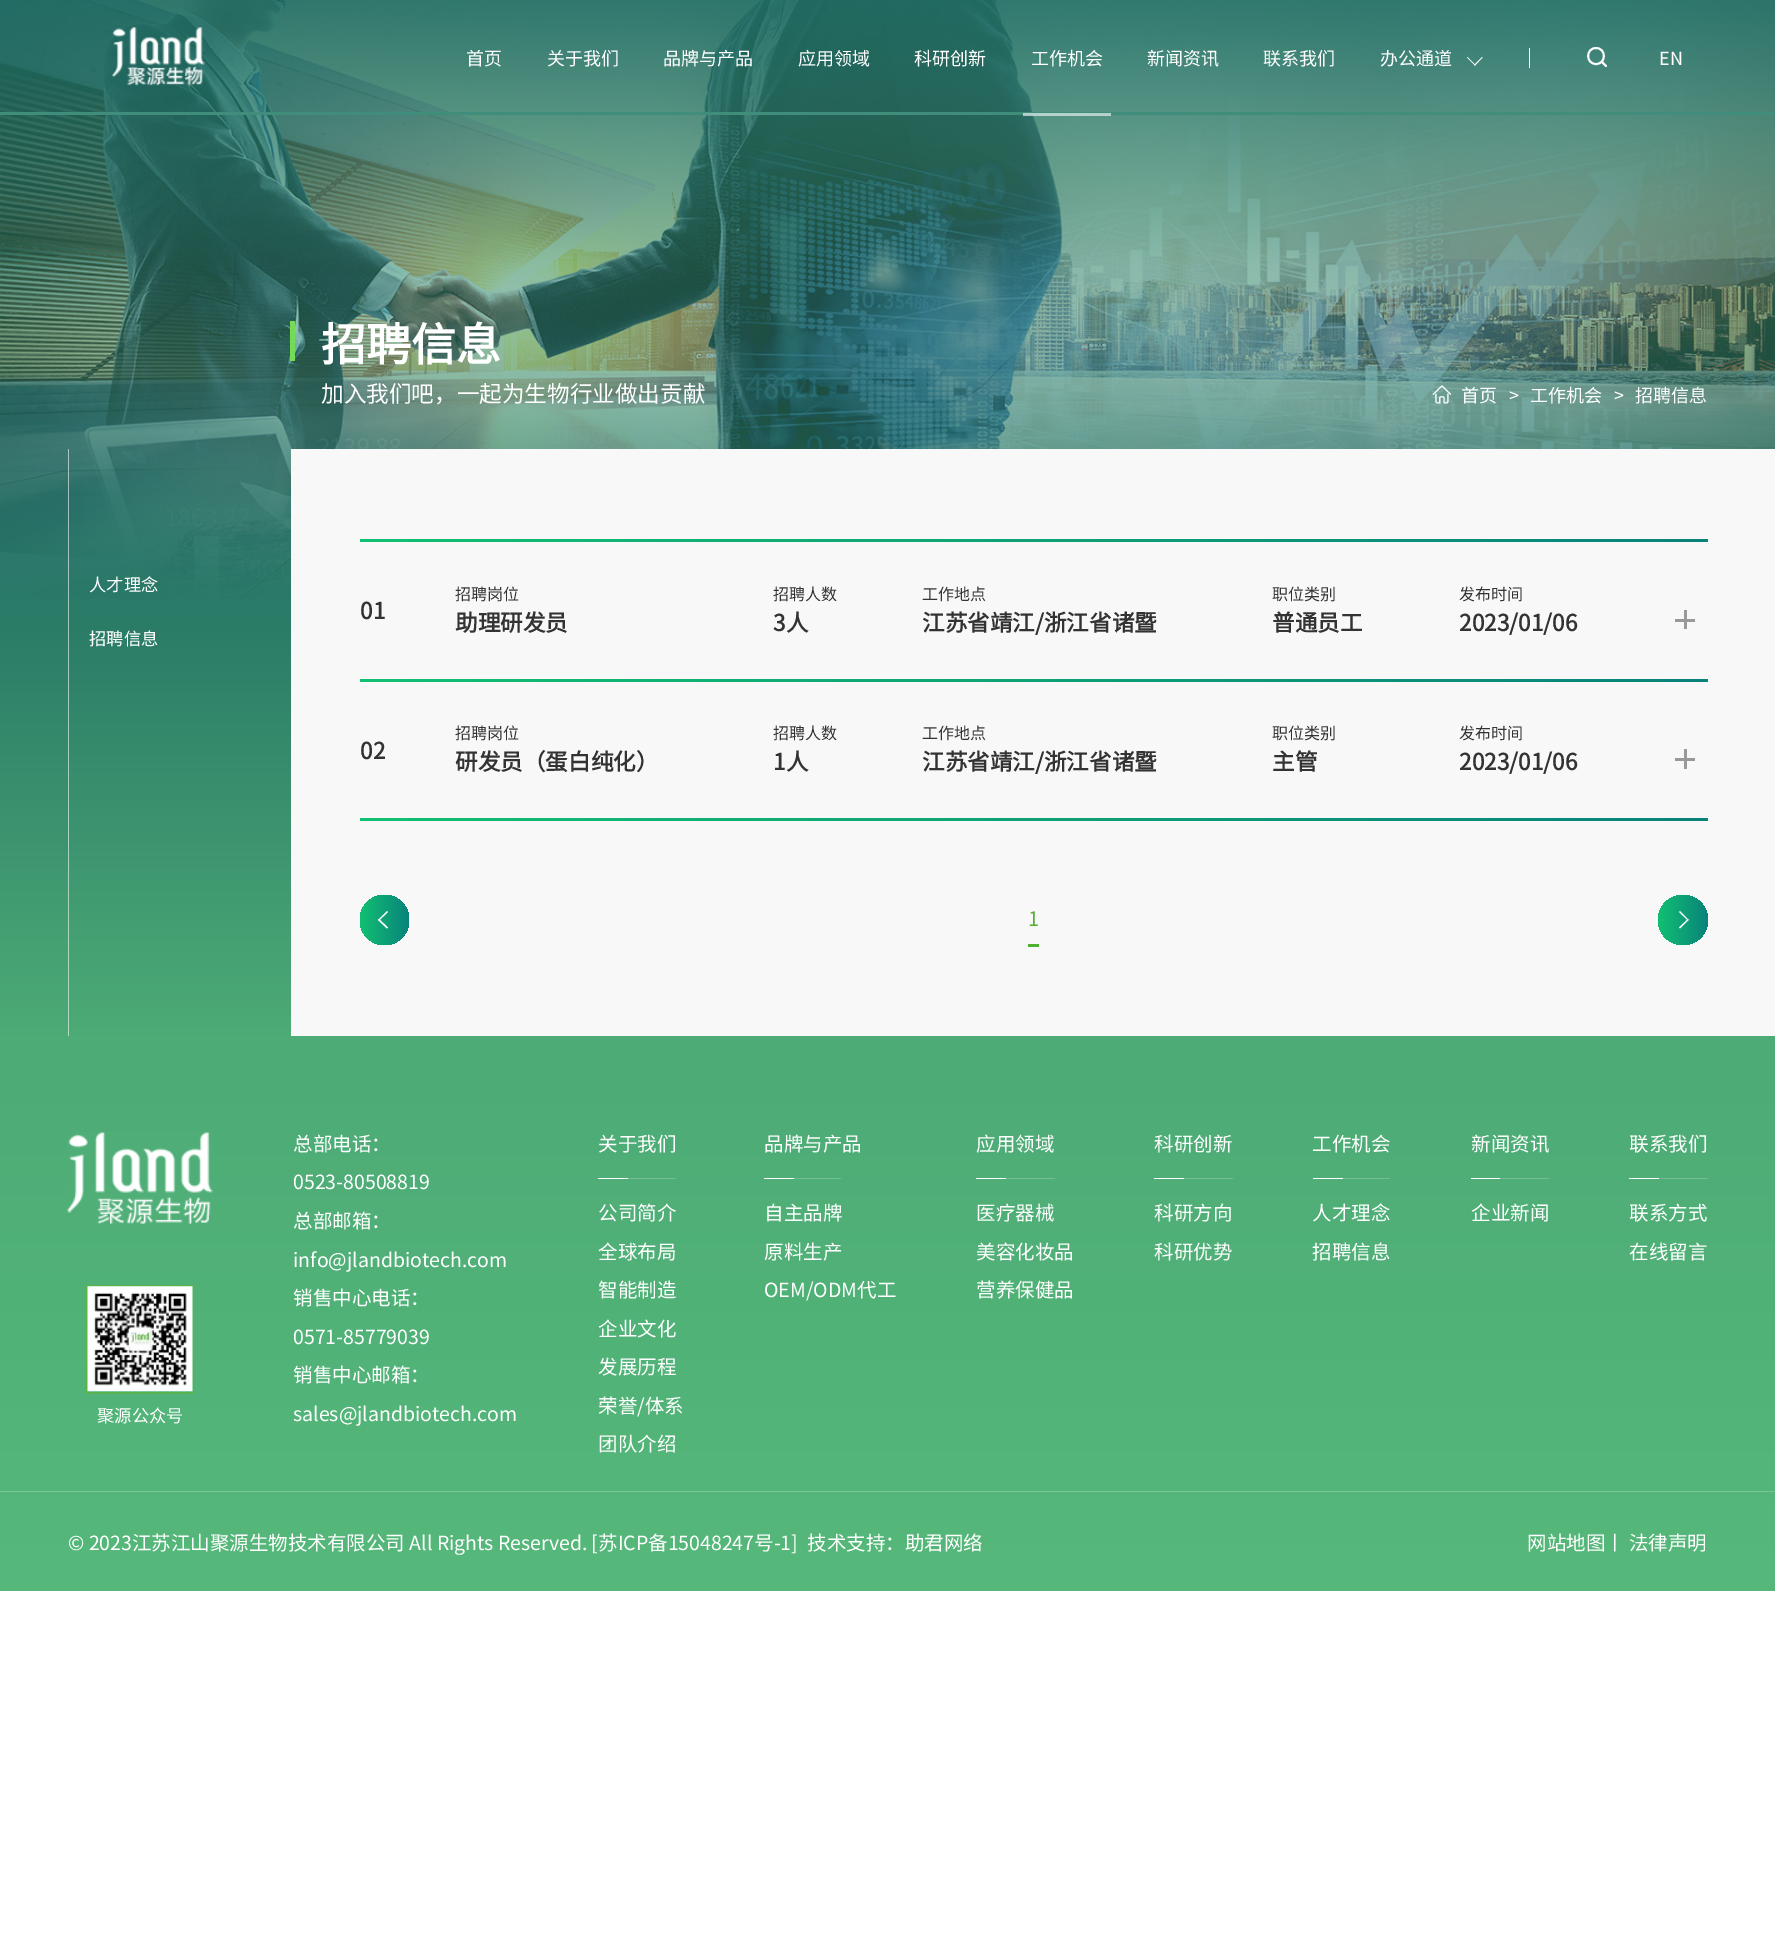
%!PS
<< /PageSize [1775 1940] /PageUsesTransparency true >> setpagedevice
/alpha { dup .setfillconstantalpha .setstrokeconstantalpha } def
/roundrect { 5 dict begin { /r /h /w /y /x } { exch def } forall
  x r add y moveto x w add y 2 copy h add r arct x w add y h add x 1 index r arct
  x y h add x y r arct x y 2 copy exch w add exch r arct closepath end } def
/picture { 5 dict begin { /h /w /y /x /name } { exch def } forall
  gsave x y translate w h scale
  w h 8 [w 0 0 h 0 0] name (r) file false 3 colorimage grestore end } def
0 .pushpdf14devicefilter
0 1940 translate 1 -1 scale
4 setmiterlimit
1 setgray
0 0 1775 1940 rectfill
(img1.rgb) 0 0 1775 599 picture
gsave newpath 0 599 moveto 291 599 lineto 291 614 lineto 0 614 lineto closepath clip newpath
<< /ShadingType 2 /ColorSpace /DeviceRGB /Coords [888 272 888 614] /Extend [true true] /Function << /FunctionType 2 /Domain [0 1] /C0 [0.125 0.435 0.392] /C1 [0.165 0.482 0.404] /N 1 >> >> shfill grestore
0.251 0.553 0.482 setrgbcolor
0 112 1775 3 rectfill
(img2.rgb) 111 27 95 59 picture
/NotoSansSC-Thin [18 0 0 -18 0 0] selectfont
1 setgray
466 65 moveto (首页) show
547 65 moveto (关于我们) show
663 65 moveto (品牌与产品) show
798 65 moveto (应用领域) show
914 65 moveto (科研创新) show
1031 65 moveto (工作机会) show
0.6 alpha
1023 113 88 3 rectfill
1 alpha
1147 65 moveto (新闻资讯) show
1263 65 moveto (联系我们) show
1380 65 moveto (办公通道) show
newpath 1482.5 57.5 moveto 1475 65.5 lineto 1474 65 lineto 1482 57 lineto closepath fill
newpath 1475.5 65 moveto 1475 65.5 lineto 1467 57.5 lineto 1467.5 57 lineto closepath fill
1529 48 1 20 rectfill
1.9 setlinewidth
1 setlinejoin
newpath 1596 64 moveto 1606.5 64 1606.5 48 1596 48 curveto 1585.5 48 1585.5 64 1596 64 curveto closepath stroke
1 setlinecap
newpath 1602 62 moveto 1606 66 lineto stroke
1659 65 moveto (EN) show
gsave newpath 0 614 moveto 291 614 lineto 291 1036 lineto 0 1036 lineto closepath clip newpath
<< /ShadingType 2 /ColorSpace /DeviceRGB /Coords [888 614 888 1036] /Extend [true true] /Function << /FunctionType 2 /Domain [0 1] /C0 [0.165 0.482 0.404] /C1 [0.302 0.671 0.463] /N 1 >> >> shfill grestore
0.455 0.859 0.337 setrgbcolor
290 321 5 40 rectfill
/NotoSansSC-Bold [45 0 0 -45 0 0] selectfont
1 setgray
321 361 moveto (招聘信息) show
/NotoSansSC-Thin [22.6 0 0 -22.6 0 0] selectfont
321 402 moveto (加入我们吧，一起为生物行业做出贡献) show
(img3.rgb) 1432 385 20 19 picture
/NotoSansSC-Thin [18 0 0 -18 0 0] selectfont
1461 402 moveto (首页) show
1509 402 moveto (>) show
1530 402 moveto (工作机会) show
1614 402 moveto (>) show
1635 402 moveto (招聘信息) show
0.6 alpha
0.973 setgray
68 449 1 587 rectfill
/NotoSansSC-Thin [17.25 0 0 -17.25 0 0] selectfont
1 alpha
1 setgray
89 591 moveto (人才理念) show
89 645 moveto (招聘信息) show
0.973 setgray
291 449 1484 587 rectfill
gsave newpath 360 539 moveto 1708 539 lineto 1708 542 lineto 360 542 lineto closepath clip newpath
<< /ShadingType 2 /ColorSpace /DeviceRGB /Coords [1708 540 360 540] /Extend [true true] /Function << /FunctionType 2 /Domain [0 1] /C0 [0.035 0.514 0.482] /C1 [0.071 0.753 0.447] /N 1 >> >> shfill grestore
/NotoSansSC-Bold [22.6 0 0 -22.6 0 0] selectfont
0.2 setgray
360 619 moveto (01) show
/NotoSansSC-Thin [16 0 0 -16 0 0] selectfont
455 600 moveto (招聘岗位) show
/NotoSansSC-Bold [22.6 0 0 -22.6 0 0] selectfont
455 631 moveto (助理研发员) show
/NotoSansSC-Thin [16 0 0 -16 0 0] selectfont
773 600 moveto (招聘人数) show
/NotoSansSC-Bold [22.6 0 0 -22.6 0 0] selectfont
773 631 moveto (3人) show
/NotoSansSC-Thin [16 0 0 -16 0 0] selectfont
922 600 moveto (工作地点) show
/NotoSansSC-Bold [22.6 0 0 -22.6 0 0] selectfont
922 631 moveto (江苏省靖江/浙江省诸暨) show
/NotoSansSC-Thin [16 0 0 -16 0 0] selectfont
1272 600 moveto (职位类别) show
/NotoSansSC-Bold [22.6 0 0 -22.6 0 0] selectfont
1272 631 moveto (普通员工) show
/NotoSansSC-Thin [16 0 0 -16 0 0] selectfont
1459 600 moveto (发布时间) show
/NotoSansSC-Bold [22.6 0 0 -22.6 0 0] selectfont
1459 631 moveto (2023/01/06) show
0.6 setgray
1684 610 3 19 rectfill
1675 619 20 3 rectfill
gsave newpath 360 679 moveto 1708 679 lineto 1708 682 lineto 360 682 lineto closepath clip newpath
<< /ShadingType 2 /ColorSpace /DeviceRGB /Coords [1708 680 360 680] /Extend [true true] /Function << /FunctionType 2 /Domain [0 1] /C0 [0.035 0.514 0.482] /C1 [0.071 0.753 0.447] /N 1 >> >> shfill grestore
0.2 setgray
360 759 moveto (02) show
/NotoSansSC-Thin [16 0 0 -16 0 0] selectfont
455 739 moveto (招聘岗位) show
/NotoSansSC-Bold [22.6 0 0 -22.6 0 0] selectfont
455 770 moveto (研发员（蛋白纯化）) show
/NotoSansSC-Thin [16 0 0 -16 0 0] selectfont
773 739 moveto (招聘人数) show
/NotoSansSC-Bold [22.6 0 0 -22.6 0 0] selectfont
773 770 moveto (1人) show
/NotoSansSC-Thin [16 0 0 -16 0 0] selectfont
922 739 moveto (工作地点) show
/NotoSansSC-Bold [22.6 0 0 -22.6 0 0] selectfont
922 770 moveto (江苏省靖江/浙江省诸暨) show
/NotoSansSC-Thin [16 0 0 -16 0 0] selectfont
1272 739 moveto (职位类别) show
/NotoSansSC-Bold [22.6 0 0 -22.6 0 0] selectfont
1272 770 moveto (主管) show
/NotoSansSC-Thin [16 0 0 -16 0 0] selectfont
1459 739 moveto (发布时间) show
/NotoSansSC-Bold [22.6 0 0 -22.6 0 0] selectfont
1459 770 moveto (2023/01/06) show
0.6 setgray
1684 749 3 20 rectfill
1675 758 20 3 rectfill
gsave newpath 360 818 moveto 1708 818 lineto 1708 821 lineto 360 821 lineto closepath clip newpath
<< /ShadingType 2 /ColorSpace /DeviceRGB /Coords [1708 819 360 819] /Extend [true true] /Function << /FunctionType 2 /Domain [0 1] /C0 [0.035 0.514 0.482] /C1 [0.071 0.753 0.447] /N 1 >> >> shfill grestore
gsave 360 895 49 50 24.5 roundrect clip newpath
<< /ShadingType 2 /ColorSpace /DeviceRGB /Coords [409 920 360 920] /Extend [true true] /Function << /FunctionType 2 /Domain [0 1] /C0 [0.035 0.514 0.482] /C1 [0.071 0.753 0.447] /N 1 >> >> shfill grestore
1 setgray
newpath 387 928.5 moveto 378 920 lineto 379 919 lineto 388 927.5 lineto closepath fill
newpath 379 920.5 moveto 378 920 lineto 387 911 lineto 388 912 lineto closepath fill
0.31 0.69 0.196 setrgbcolor
1028 944 11 3 rectfill
/NotoSansSC-Thin [20 0 0 -20 0 0] selectfont
1028 926 moveto (1) show
gsave newpath 1683 920 25 0 360 arc closepath clip newpath
<< /ShadingType 2 /ColorSpace /DeviceRGB /Coords [1708 920 1658 920] /Extend [true true] /Function << /FunctionType 2 /Domain [0 1] /C0 [0.035 0.514 0.482] /C1 [0.071 0.753 0.447] /N 1 >> >> shfill grestore
1 setgray
newpath 1680 911 moveto 1688.5 920 lineto 1688 920.5 lineto 1679 912 lineto closepath fill
newpath 1688 919 moveto 1688.5 920 lineto 1680 928.5 lineto 1679 927.5 lineto closepath fill
gsave newpath 0 1036 moveto 1775 1036 lineto 1775 1591 lineto 0 1591 lineto closepath clip newpath
<< /ShadingType 2 /ColorSpace /DeviceRGB /Coords [888 1036 888 1591] /Extend [true true] /Function << /FunctionType 2 /Domain [0 1] /C0 [0.302 0.671 0.463] /C1 [0.337 0.722 0.478] /N 1 >> >> shfill grestore
/NotoSansSC-Thin [19.5 0 0 -19.5 0 0] selectfont
293 1151 moveto (总部电话：) show
293 1189 moveto (0523-80508819) show
293 1228 moveto (总部邮箱：) show
293 1267 moveto (info@jlandbiotech.com) show
293 1305 moveto (销售中心电话：) show
293 1344 moveto (0571-85779039) show
293 1382 moveto (销售中心邮箱：) show
293 1421 moveto (sales@jlandbiotech.com) show
598 1151 moveto (关于我们) show
598 1178 30 1 rectfill
0.447 0.745 0.573 setrgbcolor
628 1178 48 1 rectfill
1 setgray
598 1220 moveto (公司简介) show
598 1259 moveto (全球布局) show
598 1297 moveto (智能制造) show
598 1336 moveto (企业文化) show
598 1374 moveto (发展历程) show
598 1413 moveto (荣誉/体系) show
598 1451 moveto (团队介绍) show
764 1151 moveto (品牌与产品) show
764 1178 30 1 rectfill
0.447 0.745 0.573 setrgbcolor
794 1178 47 1 rectfill
1 setgray
764 1220 moveto (自主品牌) show
764 1259 moveto (原料生产) show
764 1297 moveto (OEM/ODM代工) show
976 1151 moveto (应用领域) show
976 1178 30 1 rectfill
0.447 0.745 0.573 setrgbcolor
1006 1178 49 1 rectfill
1 setgray
976 1220 moveto (医疗器械) show
976 1259 moveto (美容化妆品) show
976 1297 moveto (营养保健品) show
1154 1151 moveto (科研创新) show
1154 1178 30 1 rectfill
0.447 0.745 0.573 setrgbcolor
1184 1178 49 1 rectfill
1 setgray
1154 1220 moveto (科研方向) show
1154 1259 moveto (科研优势) show
1312 1151 moveto (工作机会) show
1313 1178 30 1 rectfill
0.447 0.745 0.573 setrgbcolor
1343 1178 47 1 rectfill
1 setgray
1312 1220 moveto (人才理念) show
1312 1259 moveto (招聘信息) show
1471 1151 moveto (新闻资讯) show
1471 1178 29 1 rectfill
0.447 0.745 0.573 setrgbcolor
1500 1178 49 1 rectfill
1 setgray
1471 1220 moveto (企业新闻) show
1629 1151 moveto (联系我们) show
1629 1178 30 1 rectfill
0.447 0.745 0.573 setrgbcolor
1659 1178 49 1 rectfill
1 setgray
1629 1220 moveto (联系方式) show
1629 1259 moveto (在线留言) show
(img4.rgb) 67 1132 146 92 picture
0.345 0.706 0.235 setrgbcolor
1 setlinewidth
0 setlinecap
0 setlinejoin
86.5 1285.5 107 107 rectstroke
(img5.rgb) 87 1286 106 106 picture
/NotoSansSC-Thin [17.25 0 0 -17.25 0 0] selectfont
1 setgray
97 1422 moveto (聚源公众号) show
0.478 0.776 0.588 setrgbcolor
0 1491 1775 1 rectfill
/NotoSansSC-Thin [19.5 0 0 -19.5 0 0] selectfont
1 setgray
68 1550 moveto (© 2023江苏江山聚源生物技术有限公司 All Rights Reserved. [苏ICP备15048247号-1]) show
807 1550 moveto (技术支持：助君网络) show
1527 1550 moveto (网站地图) show
1605 1550 moveto (丨 法律声明) show
.poppdf14devicefilter showpage
